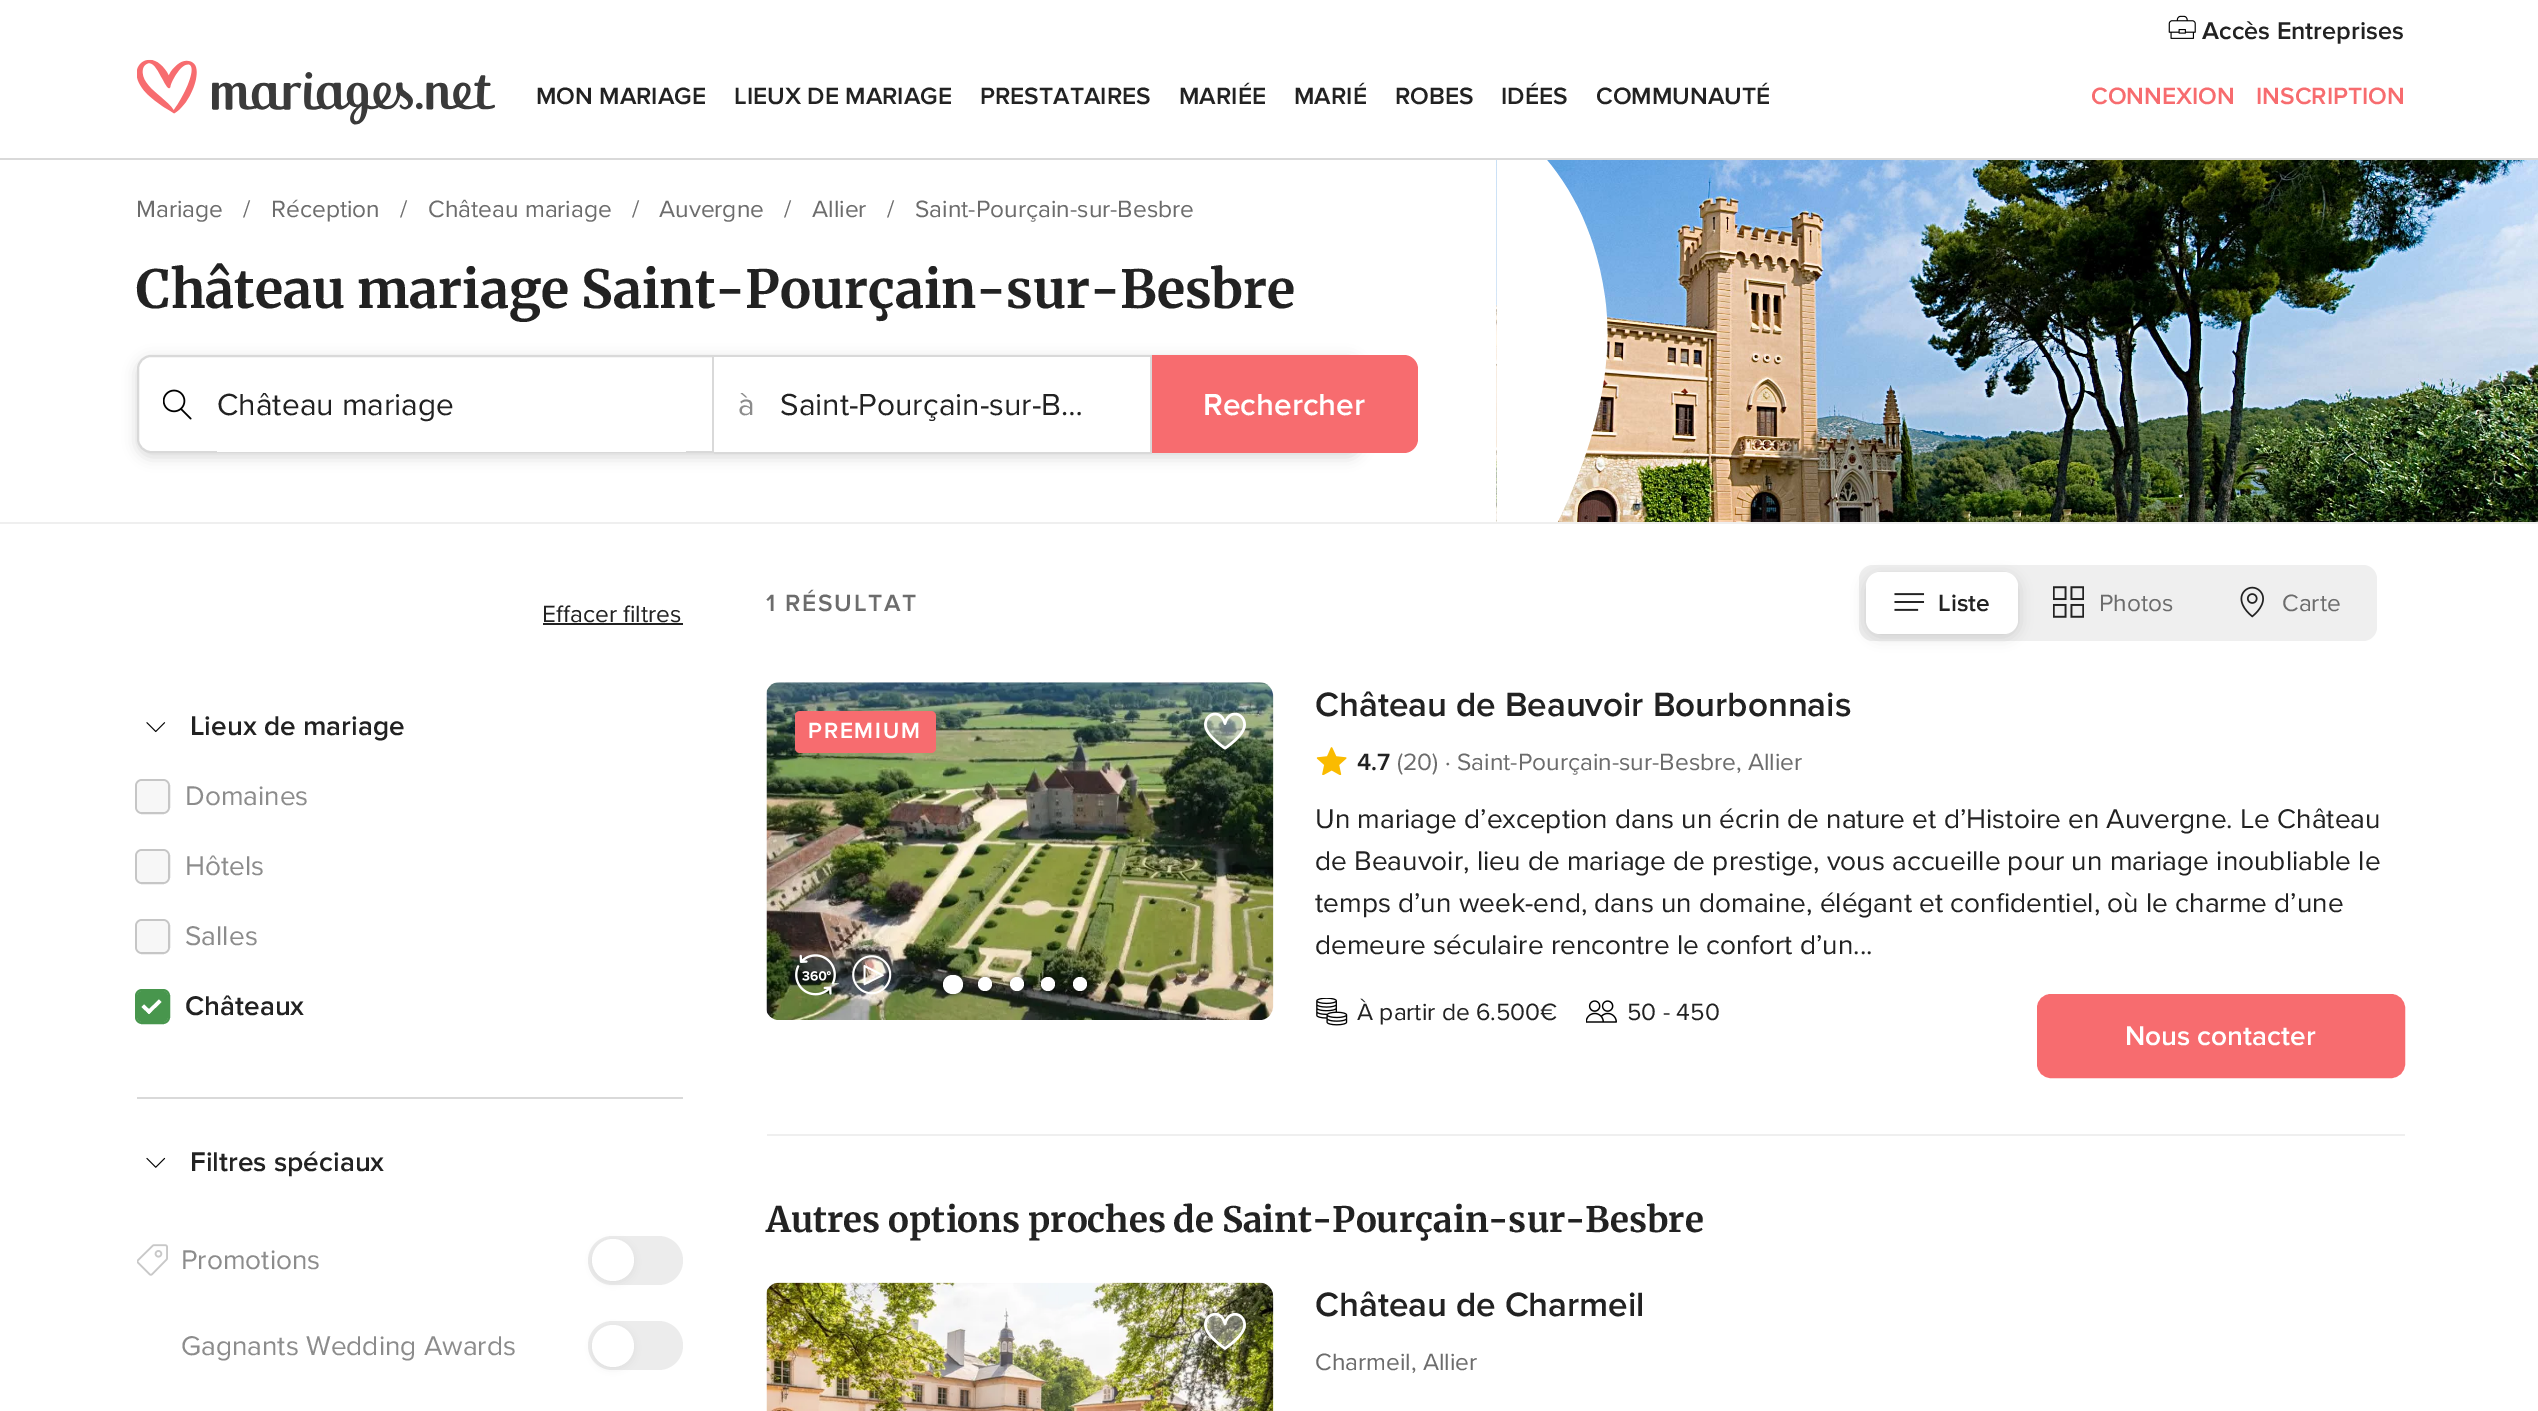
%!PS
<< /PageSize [2538 1411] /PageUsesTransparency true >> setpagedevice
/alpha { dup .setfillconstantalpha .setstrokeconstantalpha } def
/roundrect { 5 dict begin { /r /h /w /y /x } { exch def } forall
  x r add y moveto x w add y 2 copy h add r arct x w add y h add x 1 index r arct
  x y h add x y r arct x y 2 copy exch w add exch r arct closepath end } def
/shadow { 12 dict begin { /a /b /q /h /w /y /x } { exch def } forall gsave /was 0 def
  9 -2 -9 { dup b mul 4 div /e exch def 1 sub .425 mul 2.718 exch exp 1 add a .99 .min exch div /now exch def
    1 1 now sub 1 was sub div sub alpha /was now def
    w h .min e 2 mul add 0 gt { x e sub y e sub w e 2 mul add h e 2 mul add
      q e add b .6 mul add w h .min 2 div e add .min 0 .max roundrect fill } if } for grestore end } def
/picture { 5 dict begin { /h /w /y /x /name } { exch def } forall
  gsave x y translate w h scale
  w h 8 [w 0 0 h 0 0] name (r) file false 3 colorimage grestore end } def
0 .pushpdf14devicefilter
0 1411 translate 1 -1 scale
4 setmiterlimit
1 setgray
0 0 2538 1411 rectfill
(img1.rgb) 137 59 358 66 picture
/ProximaNova-SemiBold [24.5 0 0 -24.5 0 0] selectfont
0.133 setgray
536 104 moveto (MON MARIAGE) show
734 104 moveto (LIEUX DE MARIAGE) show
980 104 moveto (PRESTATAIRES) show
1179 104 moveto (MARIÉE) show
1294 104 moveto (MARIÉ) show
1395 104 moveto (ROBES) show
1501 104 moveto (IDÉES) show
1596 104 moveto (COMMUNAUTÉ) show
(img2.rgb) 2168 15 28 24 picture
/ProximaNova-SemiBold [25.25 0 0 -25.25 0 0] selectfont
2202 39 moveto (Accès Entreprises) show
/ProximaNova-SemiBold [24.5 0 0 -24.5 0 0] selectfont
0.969 0.424 0.435 setrgbcolor
2091 104 moveto (CONNEXION) show
2256 104 moveto (INSCRIPTION) show
0.851 setgray
0 158 2538 2 rectfill
/ProximaNova-Regular [24.5 0 0 -24.5 0 0] selectfont
0.424 setgray
136 217 moveto (Mariage) show
243 217 moveto (/) show
271 217 moveto (Réception) show
400 217 moveto (/) show
428 217 moveto (Château mariage) show
632 217 moveto (/) show
659 217 moveto (Auvergne) show
784 217 moveto (/) show
812 217 moveto (Allier) show
887 217 moveto (/) show
915 217 moveto (Saint-Pourçain-sur-Besbre) show
/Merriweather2-Bold [52.5 0 0 -52.5 0 0] selectfont
0.133 setgray
136 308 moveto (Château mariage Saint-Pourçain-sur-Besbre) show
(img3.rgb) 1496 160 1042 362 picture
0 setgray
137 359 1225 98 14 7 0.15 shadow
1 setgray
newpath 151 356 moveto 713 356 lineto 713 452 lineto 151 452 lineto 144 452 138 446 138 439 curveto 138 369 lineto 138 362 144 356 151 356 curveto closepath gsave fill grestore
0.851 setgray
2 setlinewidth
stroke
(img4.rgb) 163 389 29 31 picture
1 setgray
217 451 469 1 rectfill
/ProximaNova-Regular [31.6 0 0 -31.6 0 0] selectfont
0.133 setgray
217 415 moveto (Château mariage) show
1 setgray
714 357 436 95 rectfill
0.851 setgray
714 355 438 2 rectfill
1150 355 2 98 rectfill
714 452 438 2 rectfill
0.549 setgray
738 415 moveto (à) show
0.133 setgray
780 415 moveto (Saint-Pourçain-sur-B…) show
0.969 0.424 0.435 setrgbcolor
newpath 1152 355 moveto 1404 355 lineto 1411.5 355 1418 361.5 1418 369 curveto 1418 439 lineto 1418 446.5 1411.5 453 1404 453 curveto 1152 453 lineto closepath fill
/ProximaNova-SemiBold [31.6 0 0 -31.6 0 0] selectfont
1 setgray
1203 415 moveto (Rechercher) show
0.937 setgray
0 522 2538 2 rectfill
/ProximaNova-Regular [24.5 0 0 -24.5 0 0] selectfont
0.133 setgray
542 622 moveto (Effacer filtres) show
543 623 140 2 rectfill
0.851 setgray
137 1097 546 2 rectfill
(img5.rgb) 146 722 20 11 picture
/ProximaNova-SemiBold [28 0 0 -28 0 0] selectfont
0.133 setgray
190 735 moveto (Lieux de mariage) show
0.776 setgray
136 780 33 33 6 roundrect stroke
0.969 setgray
137 781 31 31 5 roundrect fill
/ProximaNova-Regular [28 0 0 -28 0 0] selectfont
0.549 setgray
185 805 moveto (Domaines) show
0.776 setgray
136 850 33 33 6 roundrect stroke
0.969 setgray
137 851 31 31 5 roundrect fill
0.549 setgray
185 875 moveto (Hôtels) show
0.776 setgray
136 920 33 33 6 roundrect stroke
0.969 setgray
137 921 31 31 5 roundrect fill
0.549 setgray
185 945 moveto (Salles) show
0.282 0.588 0.302 setrgbcolor
136 990 33 33 6 roundrect stroke
137 991 31 31 5 roundrect fill
/ProximaNova-SemiBold [28 0 0 -28 0 0] selectfont
0.133 setgray
185 1015 moveto (Châteaux) show
1 setgray
newpath 159 999.5 moveto 161.5 1002 lineto 149 1014 lineto 146.5 1011.5 lineto closepath fill
newpath 144 1004.5 moveto 151.5 1011.5 lineto 149 1014 lineto 141.5 1007 lineto closepath fill
(img6.rgb) 146 1157 20 11 picture
0.133 setgray
190 1171 moveto (Filtres spéciaux) show
(img7.rgb) 137 1244 31 32 picture
/ProximaNova-Regular [28 0 0 -28 0 0] selectfont
0.549 setgray
181 1269 moveto (Promotions) show
0.925 setgray
588 1236 95 49 24.5 roundrect fill
0.502 setgray
592 1241 42 42 21 4.5 0.15 shadow
1 setgray
newpath 613 1260 21 0 360 arc closepath fill
0.549 setgray
181 1355 moveto (Gagnants Wedding Awards) show
0.925 setgray
588 1321 95 49 24.5 roundrect fill
0.502 setgray
592 1327 42 42 21 4.5 0.15 shadow
1 setgray
newpath 613 1346 21 0 360 arc closepath fill
/ProximaNova-SemiBold [24.5 0 0 -24.5 0 0] selectfont
0.424 setgray
766 611 moveto 1.75 0 (1 RÉSULTAT) ashow
0.937 setgray
1859 565 518 76 14 roundrect fill
0 setgray
1866 576 152 61 14 7 0.15 shadow
1 setgray
1866 572 152 62 14 roundrect fill
(img8.rgb) 1894 593 31 18 picture
0.133 setgray
1938 611 moveto (Liste) show
(img9.rgb) 2053 586 31 32 picture
/ProximaNova-Regular [24.5 0 0 -24.5 0 0] selectfont
0.424 setgray
2099 611 moveto (Photos) show
(img10.rgb) 2240 586 24 32 picture
2282 611 moveto (Carte) show
0.937 setgray
767 1134 1638 2 rectfill
(img11.rgb) 766 682 508 338 picture
gsave
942 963 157 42 rectclip
0 setgray
943 975 20 19 9.5 2.5 0.5 shadow
grestore
1 setgray
943 975 20 19 9.5 roundrect fill
0 setgray
978 977 14 14 7 2 0.5 shadow
1 setgray
newpath 985 984 7 0 360 arc closepath fill
0 setgray
1010 977 14 14 7 2 0.5 shadow
1 setgray
newpath 1017 984 7 0 360 arc closepath fill
0 setgray
1041 977 14 14 7 2 0.5 shadow
1 setgray
newpath 1048 984 7 0 360 arc closepath fill
0 setgray
1073 977 14 14 7 2 0.5 shadow
1 setgray
newpath 1080 984 7 0 360 arc closepath fill
0.969 0.424 0.435 setrgbcolor
795 711 141 42 5 roundrect fill
/ProximaNova-SemiBold [22.75 0 0 -22.75 0 0] selectfont
1 setgray
808 738 moveto 1.75 0 (PREMIUM) ashow
(img12.rgb) 1204 712 42 38 picture
(img13.rgb) 795 954 41 42 picture
(img14.rgb) 852 955 40 40 picture
/ProximaNova-SemiBold [35 0 0 -35 0 0] selectfont
0.133 setgray
1315 716 moveto (Château de Beauvoir Bourbonnais) show
(img15.rgb) 1316 747 31 28 picture
/ProximaNova-SemiBold [24.5 0 0 -24.5 0 0] selectfont
1357 770 moveto (4.7) show
/ProximaNova-Regular [24.5 0 0 -24.5 0 0] selectfont
0.424 setgray
1397 770 moveto (\(20\) · Saint-Pourçain-sur-Besbre, Allier) show
/ProximaNova-Regular [28 0 0 -28 0 0] selectfont
0.133 setgray
1315 828 moveto (Un mariage d’exception dans un écrin de nature et d’Histoire en Auvergne. Le Château) show
1315 870 moveto (de Beauvoir, lieu de mariage de prestige, vous accueille pour un mariage inoubliable le) show
1315 912 moveto (temps d’un week-end, dans un domaine, élégant et confidentiel, où le charme d’une) show
1315 954 moveto (demeure séculaire rencontre le confort d’un...) show
(img16.rgb) 1316 998 32 28 picture
/ProximaNova-Regular [24.5 0 0 -24.5 0 0] selectfont
1357 1020 moveto (À partir de 6.500€) show
(img17.rgb) 1586 1000 31 23 picture
1627 1020 moveto (50 - 450) show
0.969 0.424 0.435 setrgbcolor
2038 995 366 82 13 roundrect gsave fill grestore
stroke
/ProximaNova-SemiBold [28 0 0 -28 0 0] selectfont
1 setgray
2125 1045 moveto (Nous contacter) show
/Merriweather-Bold [35 0 0 -35 0 0] selectfont
0.133 setgray
766 1232 moveto -0.5 0 32 (Autres options proches de Saint-Pourçain-sur-Besbre) widthshow
(img18.rgb) 766 1282 508 129 picture
(img19.rgb) 1204 1312 42 38 picture
/ProximaNova-SemiBold [35 0 0 -35 0 0] selectfont
1315 1316 moveto (Château de Charmeil) show
/ProximaNova-Regular [24.5 0 0 -24.5 0 0] selectfont
0.424 setgray
1315 1370 moveto (Charmeil, Allier) show
.poppdf14devicefilter showpage
